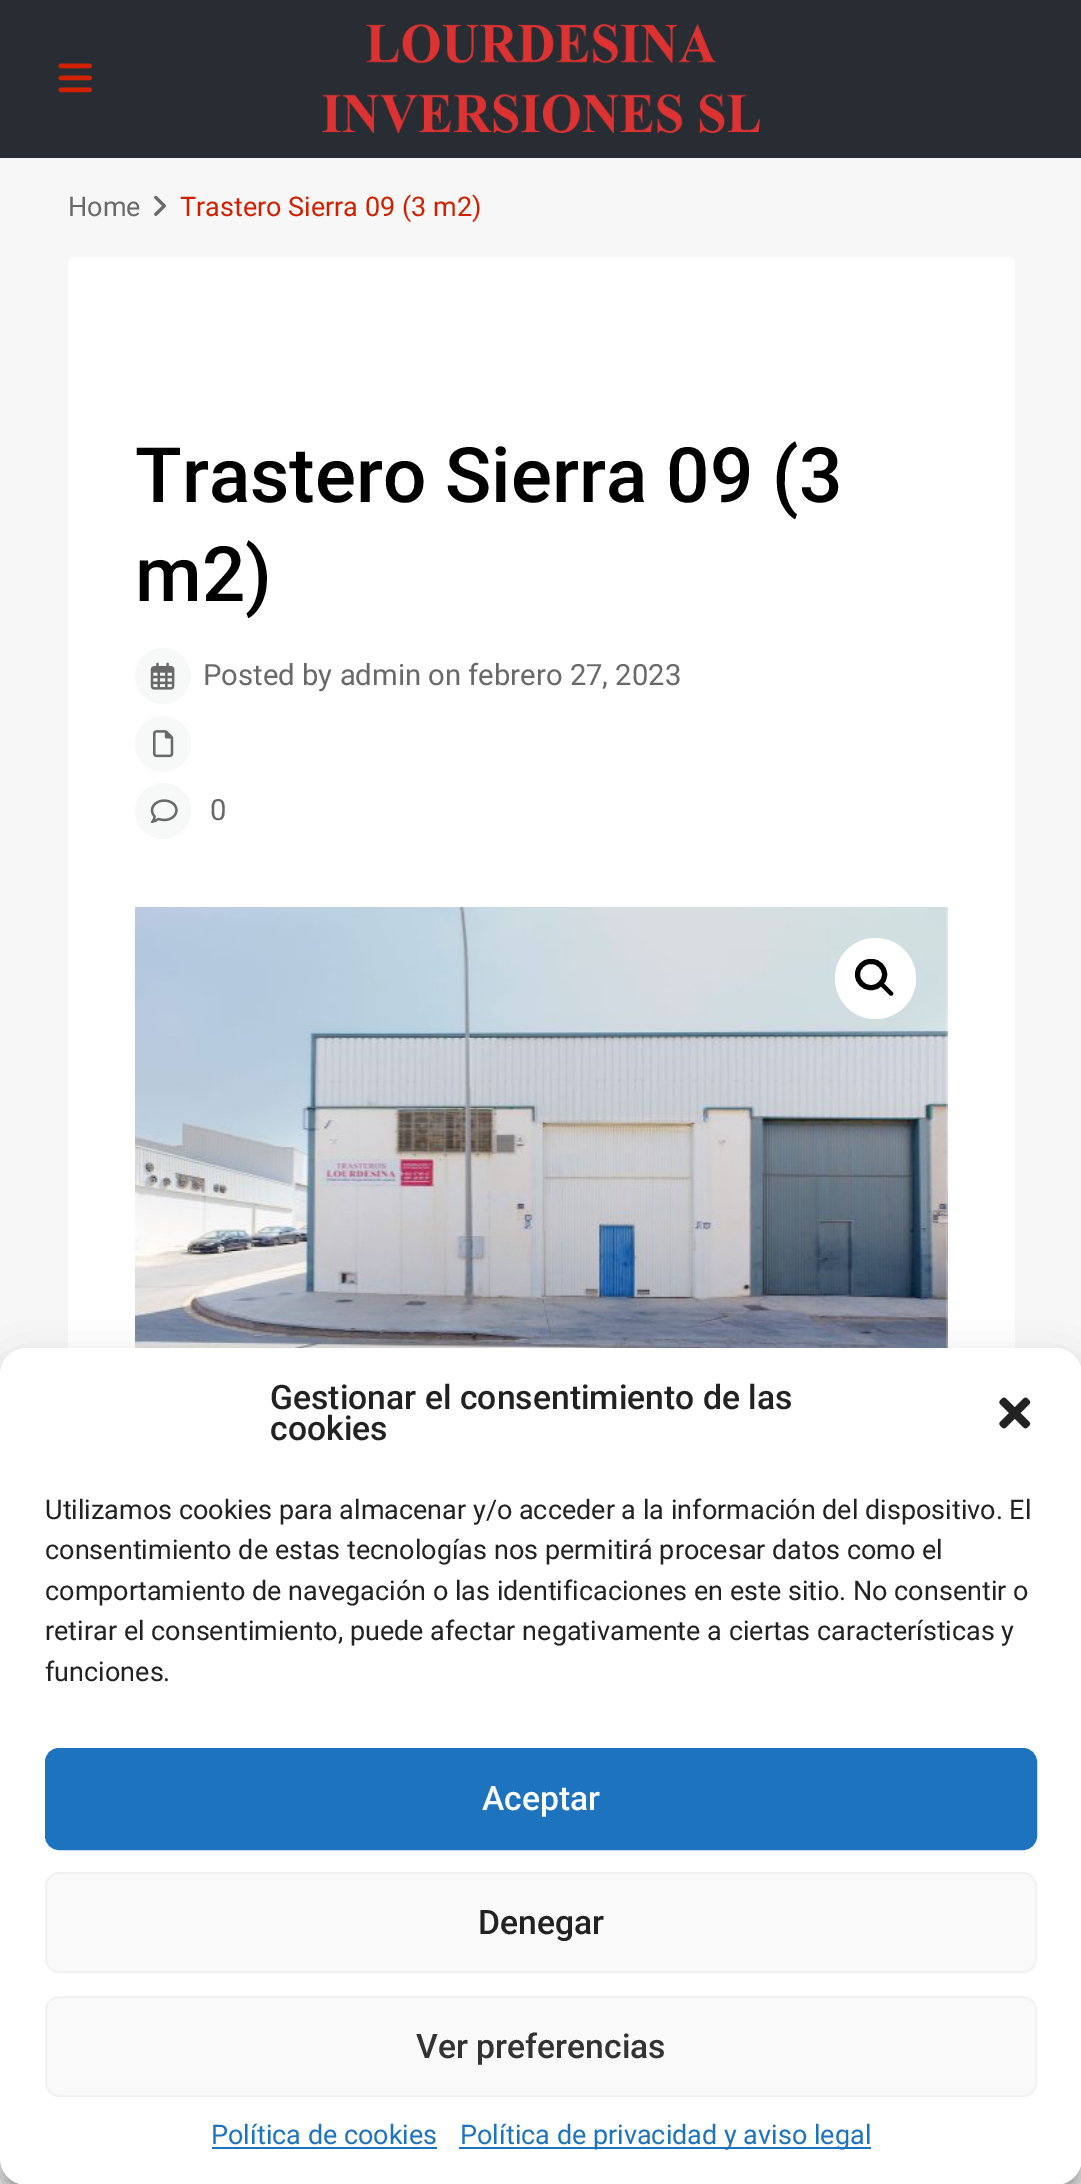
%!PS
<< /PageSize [1081 2184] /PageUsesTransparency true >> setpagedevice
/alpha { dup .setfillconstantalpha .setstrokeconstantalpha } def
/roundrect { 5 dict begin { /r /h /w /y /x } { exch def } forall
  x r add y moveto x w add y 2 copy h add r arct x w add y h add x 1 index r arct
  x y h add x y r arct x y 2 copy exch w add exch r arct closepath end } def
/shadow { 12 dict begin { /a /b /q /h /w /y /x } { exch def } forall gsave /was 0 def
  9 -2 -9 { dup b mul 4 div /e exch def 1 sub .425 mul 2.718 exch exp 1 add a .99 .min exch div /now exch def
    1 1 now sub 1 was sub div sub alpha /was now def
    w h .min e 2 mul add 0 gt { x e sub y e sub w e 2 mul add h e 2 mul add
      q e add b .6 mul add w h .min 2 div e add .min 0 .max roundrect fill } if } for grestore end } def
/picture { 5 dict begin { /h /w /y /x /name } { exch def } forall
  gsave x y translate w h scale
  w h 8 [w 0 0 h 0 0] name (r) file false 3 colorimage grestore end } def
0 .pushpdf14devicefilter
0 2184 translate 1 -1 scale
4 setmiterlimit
0.969 setgray
0 0 1081 2184 rectfill
0.157 0.176 0.2 setrgbcolor
0 0 1081 158 rectfill
(img1.rgb) 58 63 34 30 picture
(img2.rgb) 322 24 438 110 picture
/Roboto-Regular [27 0 0 -27 0 0] selectfont
0.412 setgray
68 216 moveto (Home) show
(img3.rgb) 154 195 12 21 picture
0.82 0.129 0.004 setrgbcolor
180 216 moveto (Trastero Sierra 09 \(3 m2\)) show
1 setgray
68 257 947 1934 7 roundrect fill
/Roboto-Medium [76.5 0 0 -76.5 0 0] selectfont
0 setgray
135 502 moveto (Trastero Sierra 09 \(3) show
135 601 moveto (m2\)) show
0.969 0.973 0.973 setrgbcolor
newpath 163 676 28 0 360 arc closepath fill
(img4.rgb) 150 662 25 28 picture
/Roboto-Regular [29.25 0 0 -29.25 0 0] selectfont
0.412 setgray
203 685 moveto (Posted by admin on febrero 27, 2023) show
0.969 0.973 0.973 setrgbcolor
newpath 163 744 28 0 360 arc closepath fill
(img5.rgb) 153 730 21 28 picture
newpath 163 811 28 0 360 arc closepath fill
(img6.rgb) 150 799 28 24 picture
0.412 setgray
210 820 moveto (0) show
(img8.rgb) 947 907 1 441 picture
(img7.rgb) 135 907 813 441 picture
1 setgray
newpath 875.5 978.5 40.5 0 360 arc closepath fill
0 setgray
5 setlinewidth
857.5 961.5 27 26 13 roundrect stroke
newpath 880 982.5 moveto 881 981.5 882 981.5 883 982.5 curveto 892.5 992 lineto 893.5 993 893.5 994.5 892.5 995 curveto 892 996 890.5 996 889.5 995 curveto 880 985.5 lineto 879 985 879 983.5 880 982.5 curveto closepath fill
0 1361 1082 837 27 7 0.23 shadow
0 1370 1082 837 27 22.5 0.19 shadow
1 setgray
0 1348 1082 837 27 roundrect fill
/Roboto-Medium [33.75 0 0 -33.75 0 0] selectfont
0.133 setgray
270 1409 moveto (Gestionar el consentimiento de las) show
270 1440 moveto (cookies) show
(img9.rgb) 999 1397 32 32 picture
/Roboto-Regular [27 0 0 -27 0 0] selectfont
45 1519 moveto (Utilizamos cookies para almacenar y/o acceder a la información del dispositivo. El) show
45 1559 moveto (consentimiento de estas tecnologías nos permitirá procesar datos como el) show
45 1600 moveto (comportamiento de navegación o las identificaciones en este sitio. No consentir o) show
45 1640 moveto (retirar el consentimiento, puede afectar negativamente a ciertas características y) show
45 1681 moveto (funciones.) show
0.118 0.451 0.745 setrgbcolor
46 1749 990 100 13 roundrect gsave fill grestore
2 setlinewidth
stroke
/Roboto-Medium [33.75 0 0 -33.75 0 0] selectfont
1 setgray
482 1810 moveto (Aceptar) show
0.976 setgray
46 1873 990 99 13 roundrect gsave fill grestore
0.949 setgray
stroke
0.133 setgray
478 1934 moveto (Denegar) show
0.976 setgray
46 1997 990 99 13 roundrect gsave fill grestore
0.949 setgray
stroke
0.2 setgray
416 2058 moveto (Ver preferencias) show
/Roboto-Regular [27 0 0 -27 0 0] selectfont
0.118 0.451 0.745 setrgbcolor
211 2144 moveto (Política de cookies) show
212 2147 225 2 rectfill
459 2147 412 2 rectfill
460 2144 moveto (Política de privacidad y aviso legal) show
.poppdf14devicefilter showpage
